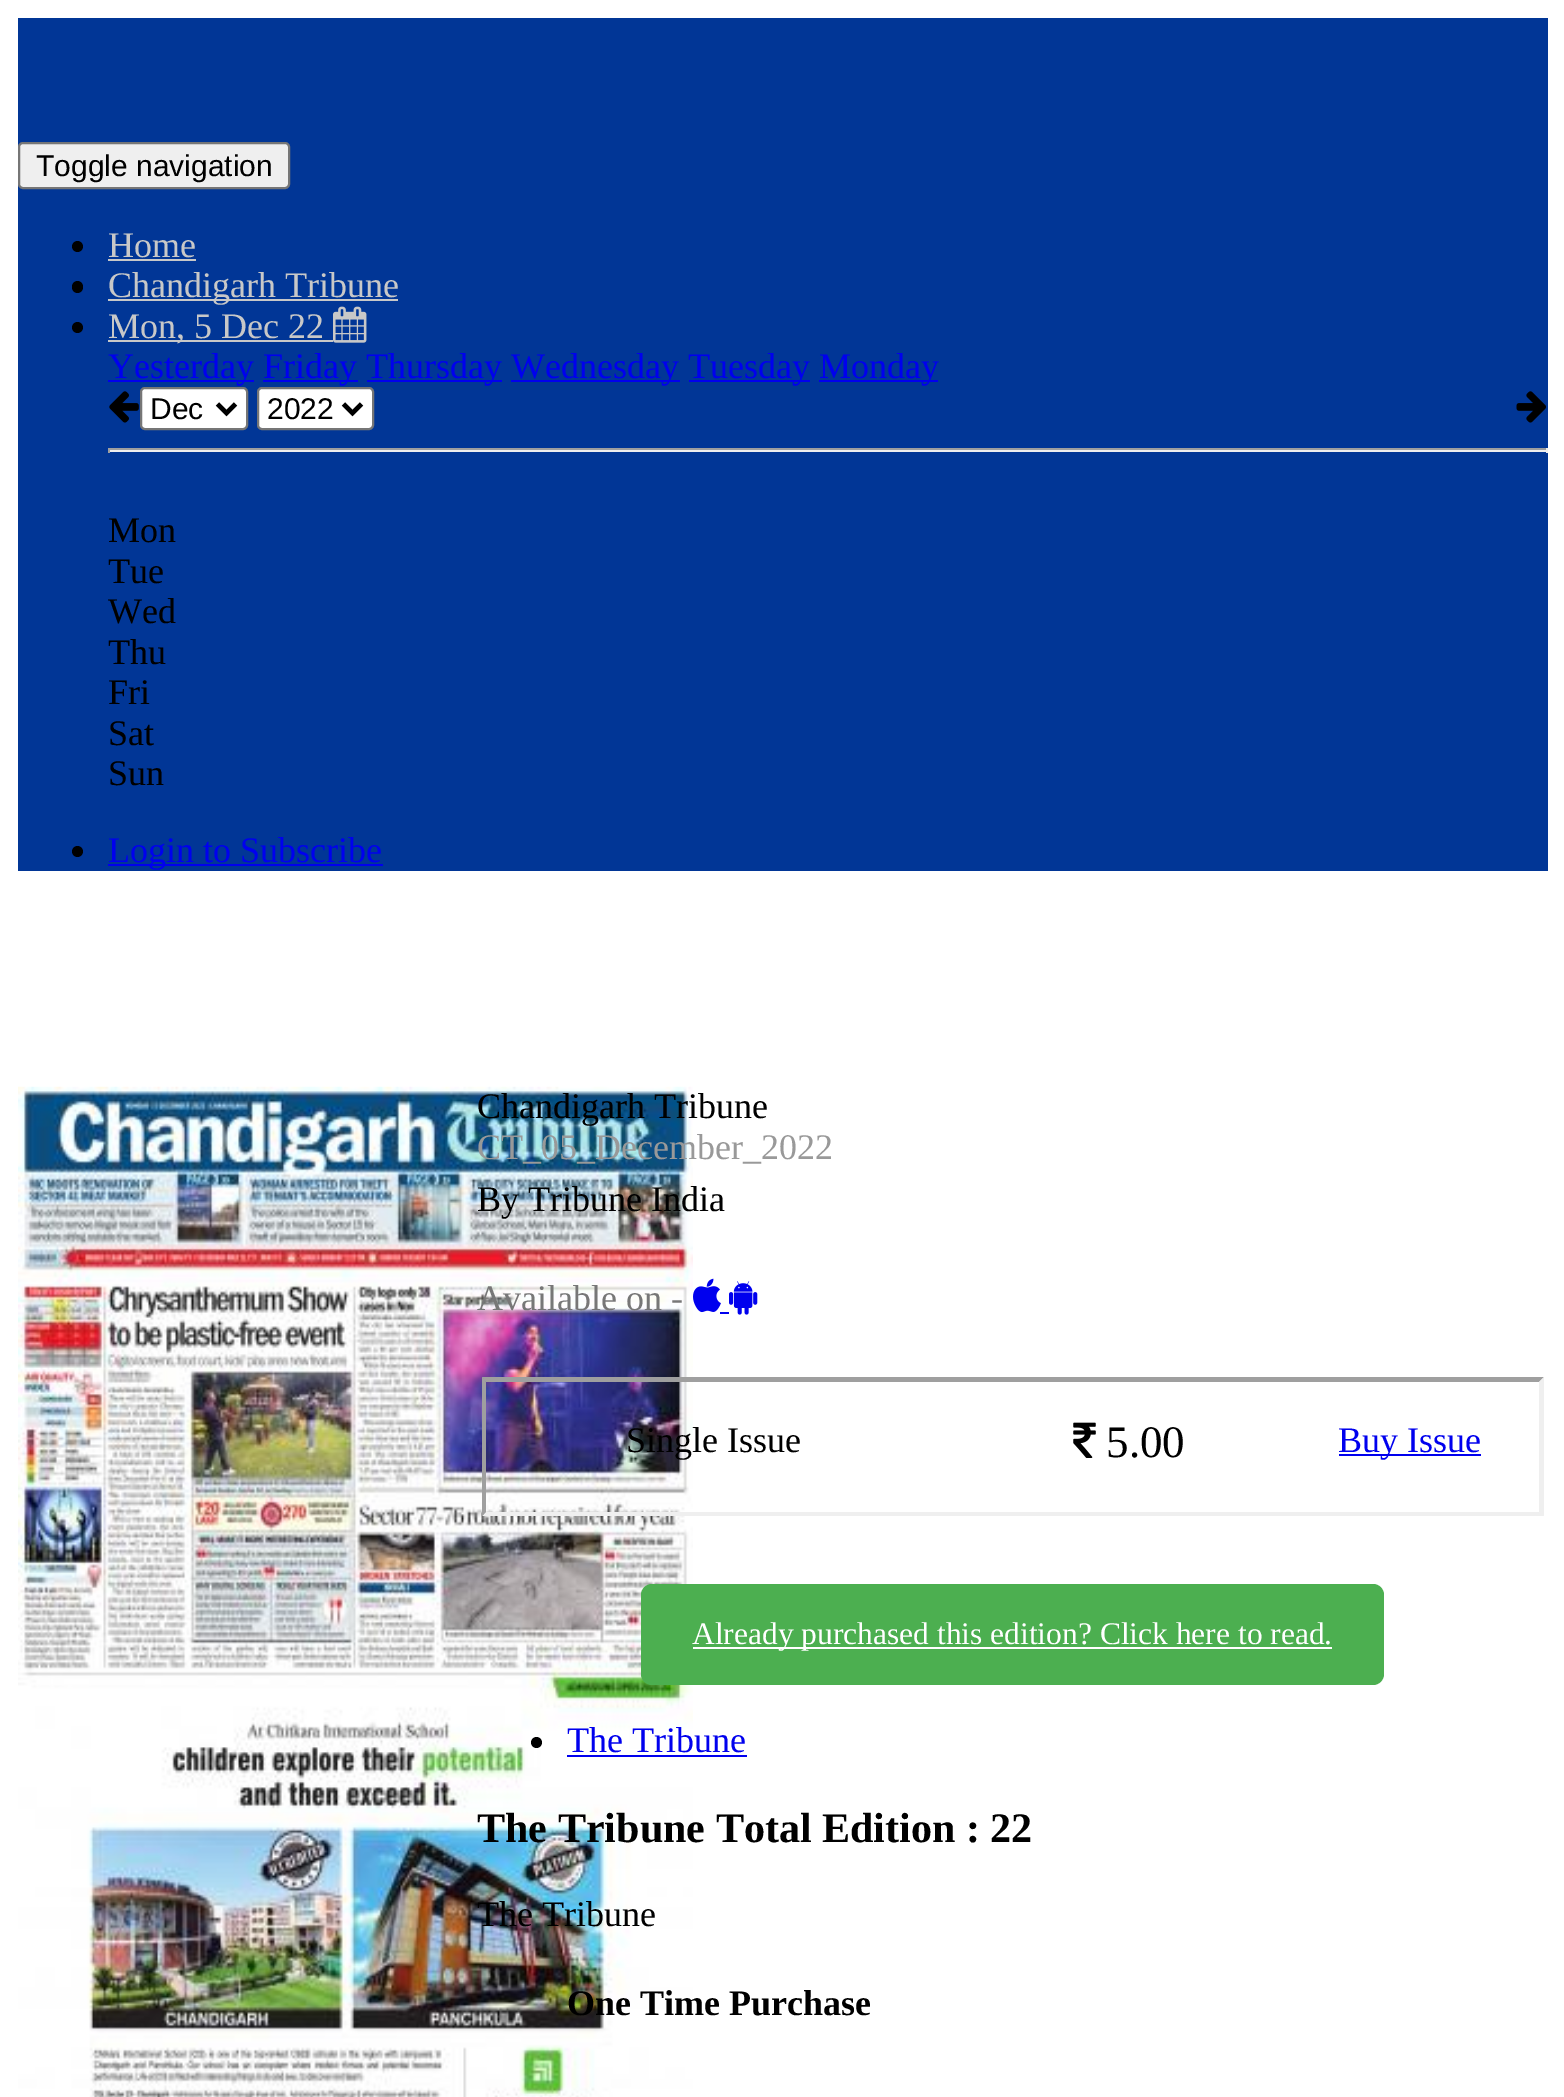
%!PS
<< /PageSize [1564 2097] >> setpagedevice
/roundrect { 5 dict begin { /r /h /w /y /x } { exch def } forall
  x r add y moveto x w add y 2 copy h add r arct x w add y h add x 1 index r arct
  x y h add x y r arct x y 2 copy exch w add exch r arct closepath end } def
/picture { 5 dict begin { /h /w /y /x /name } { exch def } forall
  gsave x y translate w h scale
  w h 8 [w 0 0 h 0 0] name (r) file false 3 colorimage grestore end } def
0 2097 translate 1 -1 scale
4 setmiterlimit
1 setgray
0 0 1564 2097 rectfill
0.004 0.212 0.588 setrgbcolor
18 18 1530 853 rectfill
0.937 setgray
19 143 270 45 4 roundrect gsave fill grestore
0.463 setgray
2 setlinewidth
stroke
/LiberationSans-Regular [30 0 0 -30 0 0] selectfont
0 setgray
36 176 moveto (Toggle navigation) show
newpath 77.5 246.5 5.5 0 360 arc closepath fill
/LiberationSerif-Regular [36 0 0 -36 0 0] selectfont
0.784 setgray
108 257 moveto (Home) show
108 259 88 2 rectfill
0 setgray
72 281 11 12 5.5 roundrect fill
0.784 setgray
108 299 290 2 rectfill
108 297 moveto (Chandigarh Tribune) show
0 setgray
newpath 77.5 327.5 5.5 0 360 arc closepath fill
0.784 setgray
108 340 225 2 rectfill
108 338 moveto (Mon, 5 Dec 22) show
(img1.rgb) 333 306 34 37 picture
0 0 0.933 setrgbcolor
108 380 146 2 rectfill
108 378 moveto (Yesterday) show
263 380 95 2 rectfill
263 378 moveto (Friday) show
367 380 135 2 rectfill
366 378 moveto (Thursday) show
511 380 169 2 rectfill
511 378 moveto (Wednesday) show
689 380 121 2 rectfill
688 378 moveto (Tuesday) show
819 380 119 2 rectfill
819 378 moveto (Monday) show
(img2.rgb) 109 391 30 32 picture
1 setgray
141 388 106 41 4 roundrect gsave fill grestore
0.463 setgray
stroke
0 setgray
4.5 setlinewidth
newpath 217.5 404 moveto 226.5 413 lineto 235.5 404 lineto stroke
/LiberationSans-Regular [30 0 0 -30 0 0] selectfont
150 419 moveto (Dec) show
1 setgray
258 388 115 41 4 roundrect gsave fill grestore
0.463 setgray
2 setlinewidth
stroke
0 setgray
4.5 setlinewidth
newpath 343.5 404 moveto 352.5 413 lineto 361.5 404 lineto stroke
267 419 moveto (2022) show
(img3.rgb) 1516 391 30 32 picture
0.624 setgray
108 448 1440 2 rectfill
0.933 setgray
1546 448 2 5 rectfill
108 450 1440 2 rectfill
0.624 setgray
108 448 2 5 rectfill
/LiberationSerif-Regular [36 0 0 -36 0 0] selectfont
0 setgray
108 542 moveto (Mon) show
108 583 moveto (Tue) show
108 623 moveto (Wed) show
108 664 moveto (Thu) show
108 704 moveto (Fri) show
108 745 moveto (Sat) show
108 785 moveto (Sun) show
newpath 77.5 851.5 5.5 0 360 arc closepath fill
0 0 0.933 setrgbcolor
108 864 275 2 rectfill
108 862 moveto (Login to Subscribe) show
(img4.rgb) 18 1086 675 1011 picture
0 setgray
477 1118 moveto (Chandigarh Tribune) show
0.6 setgray
477 1159 moveto (CT_05_December_2022) show
0 setgray
477 1211 moveto (By Tribune India) show
0.467 setgray
477 1310 moveto (Available on -) show
(img5.rgb) 693 1278 28 35 picture
0 0 0.933 setrgbcolor
720 1312 9 2 rectfill
(img6.rgb) 729 1281 29 34 picture
0.624 setgray
newpath 482 1377 moveto 1544 1377 lineto 1539 1382 lineto 486 1382 lineto closepath fill
0.937 setgray
newpath 1544 1377 moveto 1544 1516 lineto 1539 1512 lineto 1539 1382 lineto closepath fill
newpath 1544 1516 moveto 482 1516 lineto 486 1512 lineto 1539 1512 lineto closepath fill
0.624 setgray
newpath 482 1516 moveto 482 1377 lineto 486 1382 lineto 486 1512 lineto closepath fill
0 setgray
626 1452 moveto (Single Issue) show
(img7.rgb) 1073 1422 23 36 picture
/LiberationSerif-Regular [45 0 0 -45 0 0] selectfont
1106 1457 moveto (5.00) show
0 0 0.933 setrgbcolor
1339 1454 142 2 rectfill
/LiberationSerif-Regular [36 0 0 -36 0 0] selectfont
1338 1452 moveto (Buy Issue) show
0.298 0.686 0.314 setrgbcolor
641 1584 743 101 11 roundrect fill
1 setgray
693 1647 639 2 rectfill
/LiberationSerif-Regular [31.5 0 0 -31.5 0 0] selectfont
692 1644 moveto (Already purchased this edition? Click here to read.) show
0 setgray
newpath 536.5 1742.5 5.5 0 360 arc closepath fill
/LiberationSerif-Regular [36 0 0 -36 0 0] selectfont
0 0 0.933 setrgbcolor
567 1752 moveto (The Tribune) show
567 1755 180 2 rectfill
/LiberationSerif-Bold [42.1 0 0 -42.1 0 0] selectfont
0 setgray
477 1842 moveto (The Tribune Total Edition : 22) show
/LiberationSerif-Regular [36 0 0 -36 0 0] selectfont
477 1926 moveto (The Tribune) show
/LiberationSerif-Bold [36 0 0 -36 0 0] selectfont
567 2015 moveto (One Time Purchase) show
showpage
